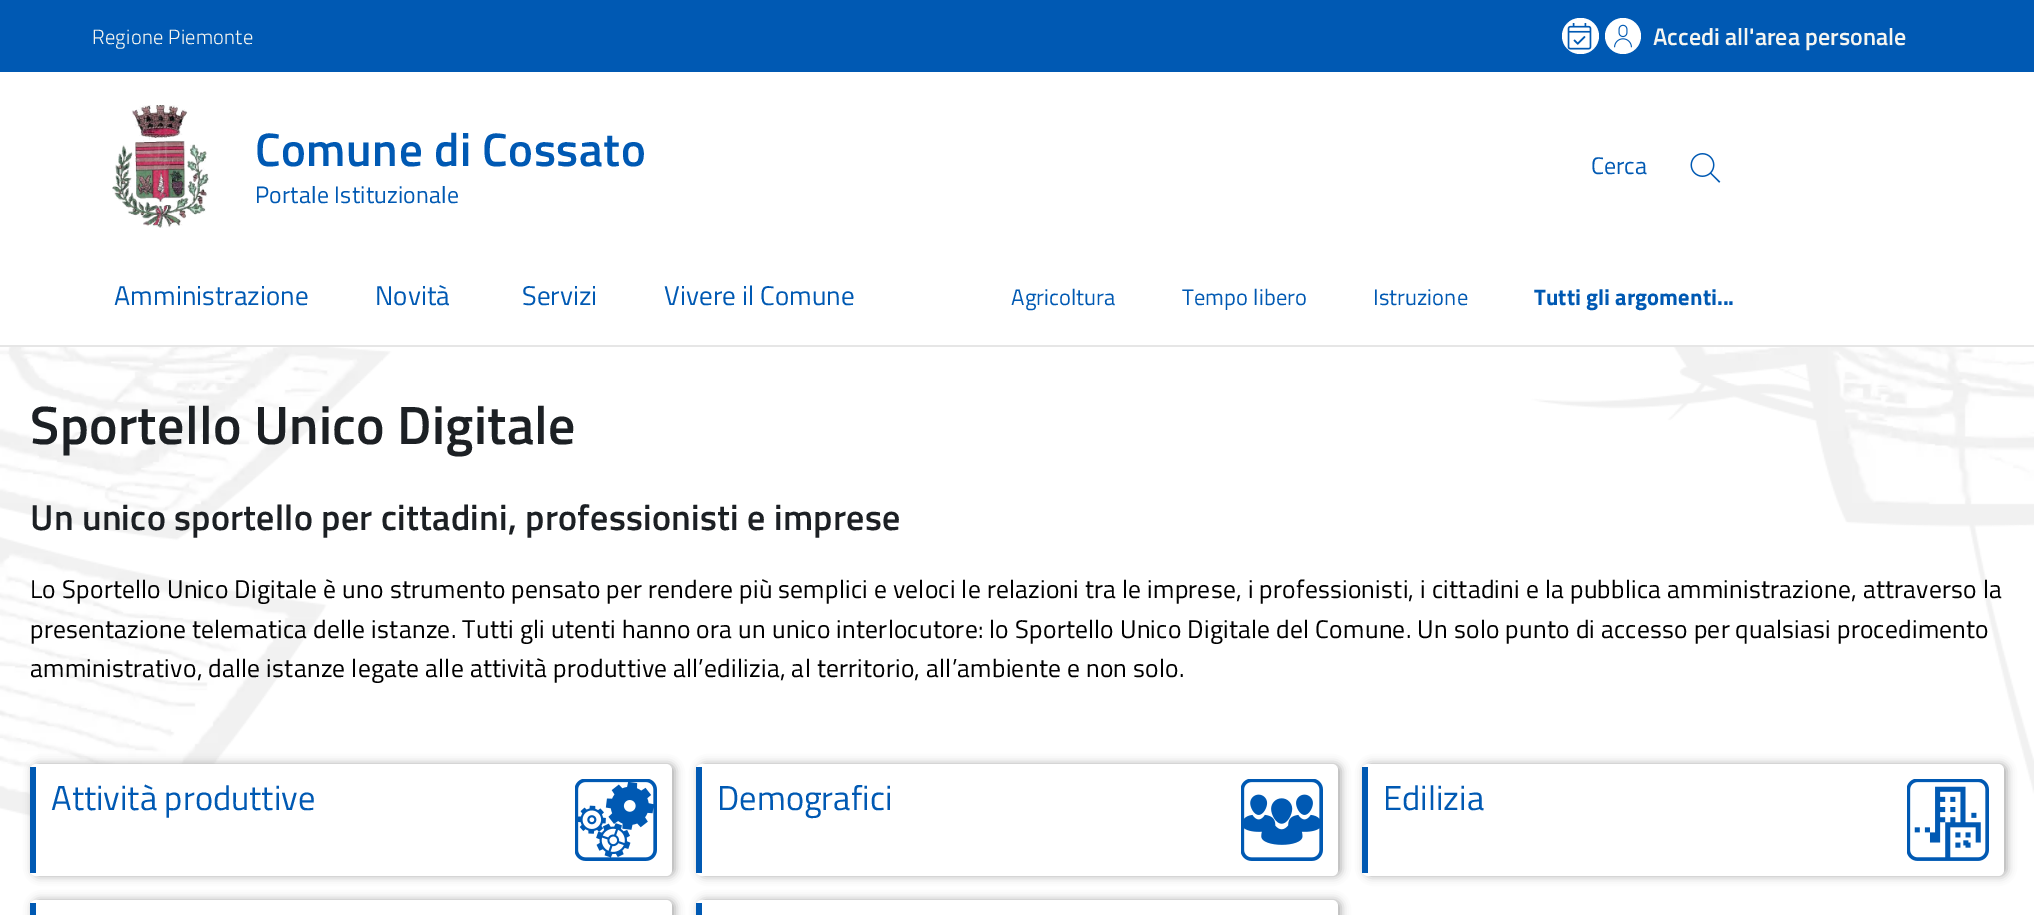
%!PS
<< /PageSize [2034 915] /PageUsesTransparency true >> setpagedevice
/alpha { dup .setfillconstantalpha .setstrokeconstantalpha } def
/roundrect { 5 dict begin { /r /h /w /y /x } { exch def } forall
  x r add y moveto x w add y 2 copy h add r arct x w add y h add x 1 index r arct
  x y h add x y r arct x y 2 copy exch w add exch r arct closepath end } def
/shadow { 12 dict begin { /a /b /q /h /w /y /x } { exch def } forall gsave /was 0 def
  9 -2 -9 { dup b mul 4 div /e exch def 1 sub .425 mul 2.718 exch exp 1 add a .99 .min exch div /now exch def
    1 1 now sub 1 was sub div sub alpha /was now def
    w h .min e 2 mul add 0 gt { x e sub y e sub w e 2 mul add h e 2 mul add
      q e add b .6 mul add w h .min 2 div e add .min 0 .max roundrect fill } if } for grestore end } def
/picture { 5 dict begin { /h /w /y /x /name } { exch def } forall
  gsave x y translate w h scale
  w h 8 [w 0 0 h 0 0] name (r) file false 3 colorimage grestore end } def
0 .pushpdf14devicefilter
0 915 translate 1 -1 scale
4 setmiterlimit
1 setgray
0 0 2034 915 rectfill
0 0.349 0.702 setrgbcolor
0 0 2034 72 rectfill
/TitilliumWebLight-Light [20.5 0 0 -20.5 0 0] selectfont
0.961 0.961 0.941 setrgbcolor
92 44 moveto 0.25 0 (Regione Piemonte) ashow
1 setgray
1562 18 37 36 18 roundrect fill
(img1.rgb) 1567 23 25 27 picture
newpath 1623 36 18 0 360 arc closepath fill
(img2.rgb) 1614 24 18 24 picture
/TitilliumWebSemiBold-SemiBold [24 0 0 -24 0 0] selectfont
0.961 0.961 0.941 setrgbcolor
1653 45 moveto (Accedi all'area personale) show
(img3.rgb) 112 105 97 123 picture
/TitilliumWebSemiBold-SemiBold [47 0 0 -47 0 0] selectfont
0 0.349 0.702 setrgbcolor
255 166 moveto 0.5 0 (Comune di Cossato) ashow
/TitilliumWeb-Regular [23.75 0 0 -23.75 0 0] selectfont
255 203 moveto 0.2 0 (Portale Istituzionale) ashow
/TitilliumWeb-Regular [24 0 0 -24 0 0] selectfont
1591 174 moveto (Cerca) show
(img4.rgb) 1690 153 31 30 picture
0.902 setgray
0 345 2034 2 rectfill
/TitilliumWeb-Regular [27 0 0 -27 0 0] selectfont
0 0.349 0.702 setrgbcolor
114 305 moveto 0.1 0 (Amministrazione) ashow
375 305 moveto 0.1 0 (Novità) ashow
522 305 moveto 0.1 0 (Servizi) ashow
664 305 moveto 0.1 0 (Vivere il Comune) ashow
/TitilliumWeb-Regular [22.5 0 0 -22.5 0 0] selectfont
1011 305 moveto 0.1 0 (Agricoltura) ashow
1182 305 moveto 0.1 0 (Tempo libero) ashow
1373 305 moveto 0.1 0 (Istruzione) ashow
/TitilliumWeb-Bold [22.5 0 0 -22.5 0 0] selectfont
1534 305 moveto 0.1 0 (Tutti gli argomenti...) ashow
(img5.rgb) 0 347 2034 470 picture
/TitilliumWebSemiBold-SemiBold [54 0 0 -54 0 0] selectfont
0.11 0.125 0.141 setrgbcolor
30 444 moveto 0.25 0 (Sportello Unico Digitale) ashow
/TitilliumWebSemiBold-SemiBold [36 0 0 -36 0 0] selectfont
30 530 moveto 0.25 0 (Un unico sportello per cittadini, professionisti e imprese) ashow
/TitilliumWeb-Regular [25.5 0 0 -25.5 0 0] selectfont
0 setgray
30 598 moveto 0.26 0 (Lo Sportello Unico Digitale è uno strumento pensato per rendere più semplici e veloci le relazioni tra le imprese, i professionisti, i cittadini e la pubblica amministrazione, attraverso la) ashow
30 638 moveto 0.26 0 (presentazione telematica delle istanze. Tutti gli utenti hanno ora un unico interlocutore: lo Sportello Unico Digitale del Comune. Un solo punto di accesso per qualsiasi procedimento) ashow
30 677 moveto 0.26 0 (amministrativo, dalle istanze legate alle attività produttive all’edilizia, al territorio, all’ambiente e non solo.) ashow
0.667 setgray
33 764 642 112 6 4.5 1 shadow
1 setgray
30 764 642 112 6 roundrect fill
0 0.349 0.702 setrgbcolor
30 767 6 106 rectfill
/TitilliumWeb-Regular [34.5 0 0 -34.5 0 0] selectfont
51 810 moveto (Attività produttive) show
(img6.rgb) 575 779 82 82 picture
0.667 setgray
699 764 642 112 6 4.5 1 shadow
1 setgray
696 764 642 112 6 roundrect fill
0 0.349 0.702 setrgbcolor
696 767 6 106 rectfill
717 810 moveto (Demografici) show
(img7.rgb) 1241 779 82 82 picture
0.667 setgray
1365 764 642 112 6 4.5 1 shadow
1 setgray
1362 764 642 112 6 roundrect fill
0 0.349 0.702 setrgbcolor
1362 767 6 106 rectfill
1383 810 moveto (Edilizia) show
(img8.rgb) 1907 779 82 82 picture
0.667 setgray
33 900 642 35 6 4.5 1 shadow
1 setgray
30 900 642 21 6 roundrect fill
0 0.349 0.702 setrgbcolor
30 903 6 12 rectfill
0.667 setgray
699 900 642 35 6 4.5 1 shadow
1 setgray
696 900 642 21 6 roundrect fill
0 0.349 0.702 setrgbcolor
696 903 6 12 rectfill
.poppdf14devicefilter showpage
